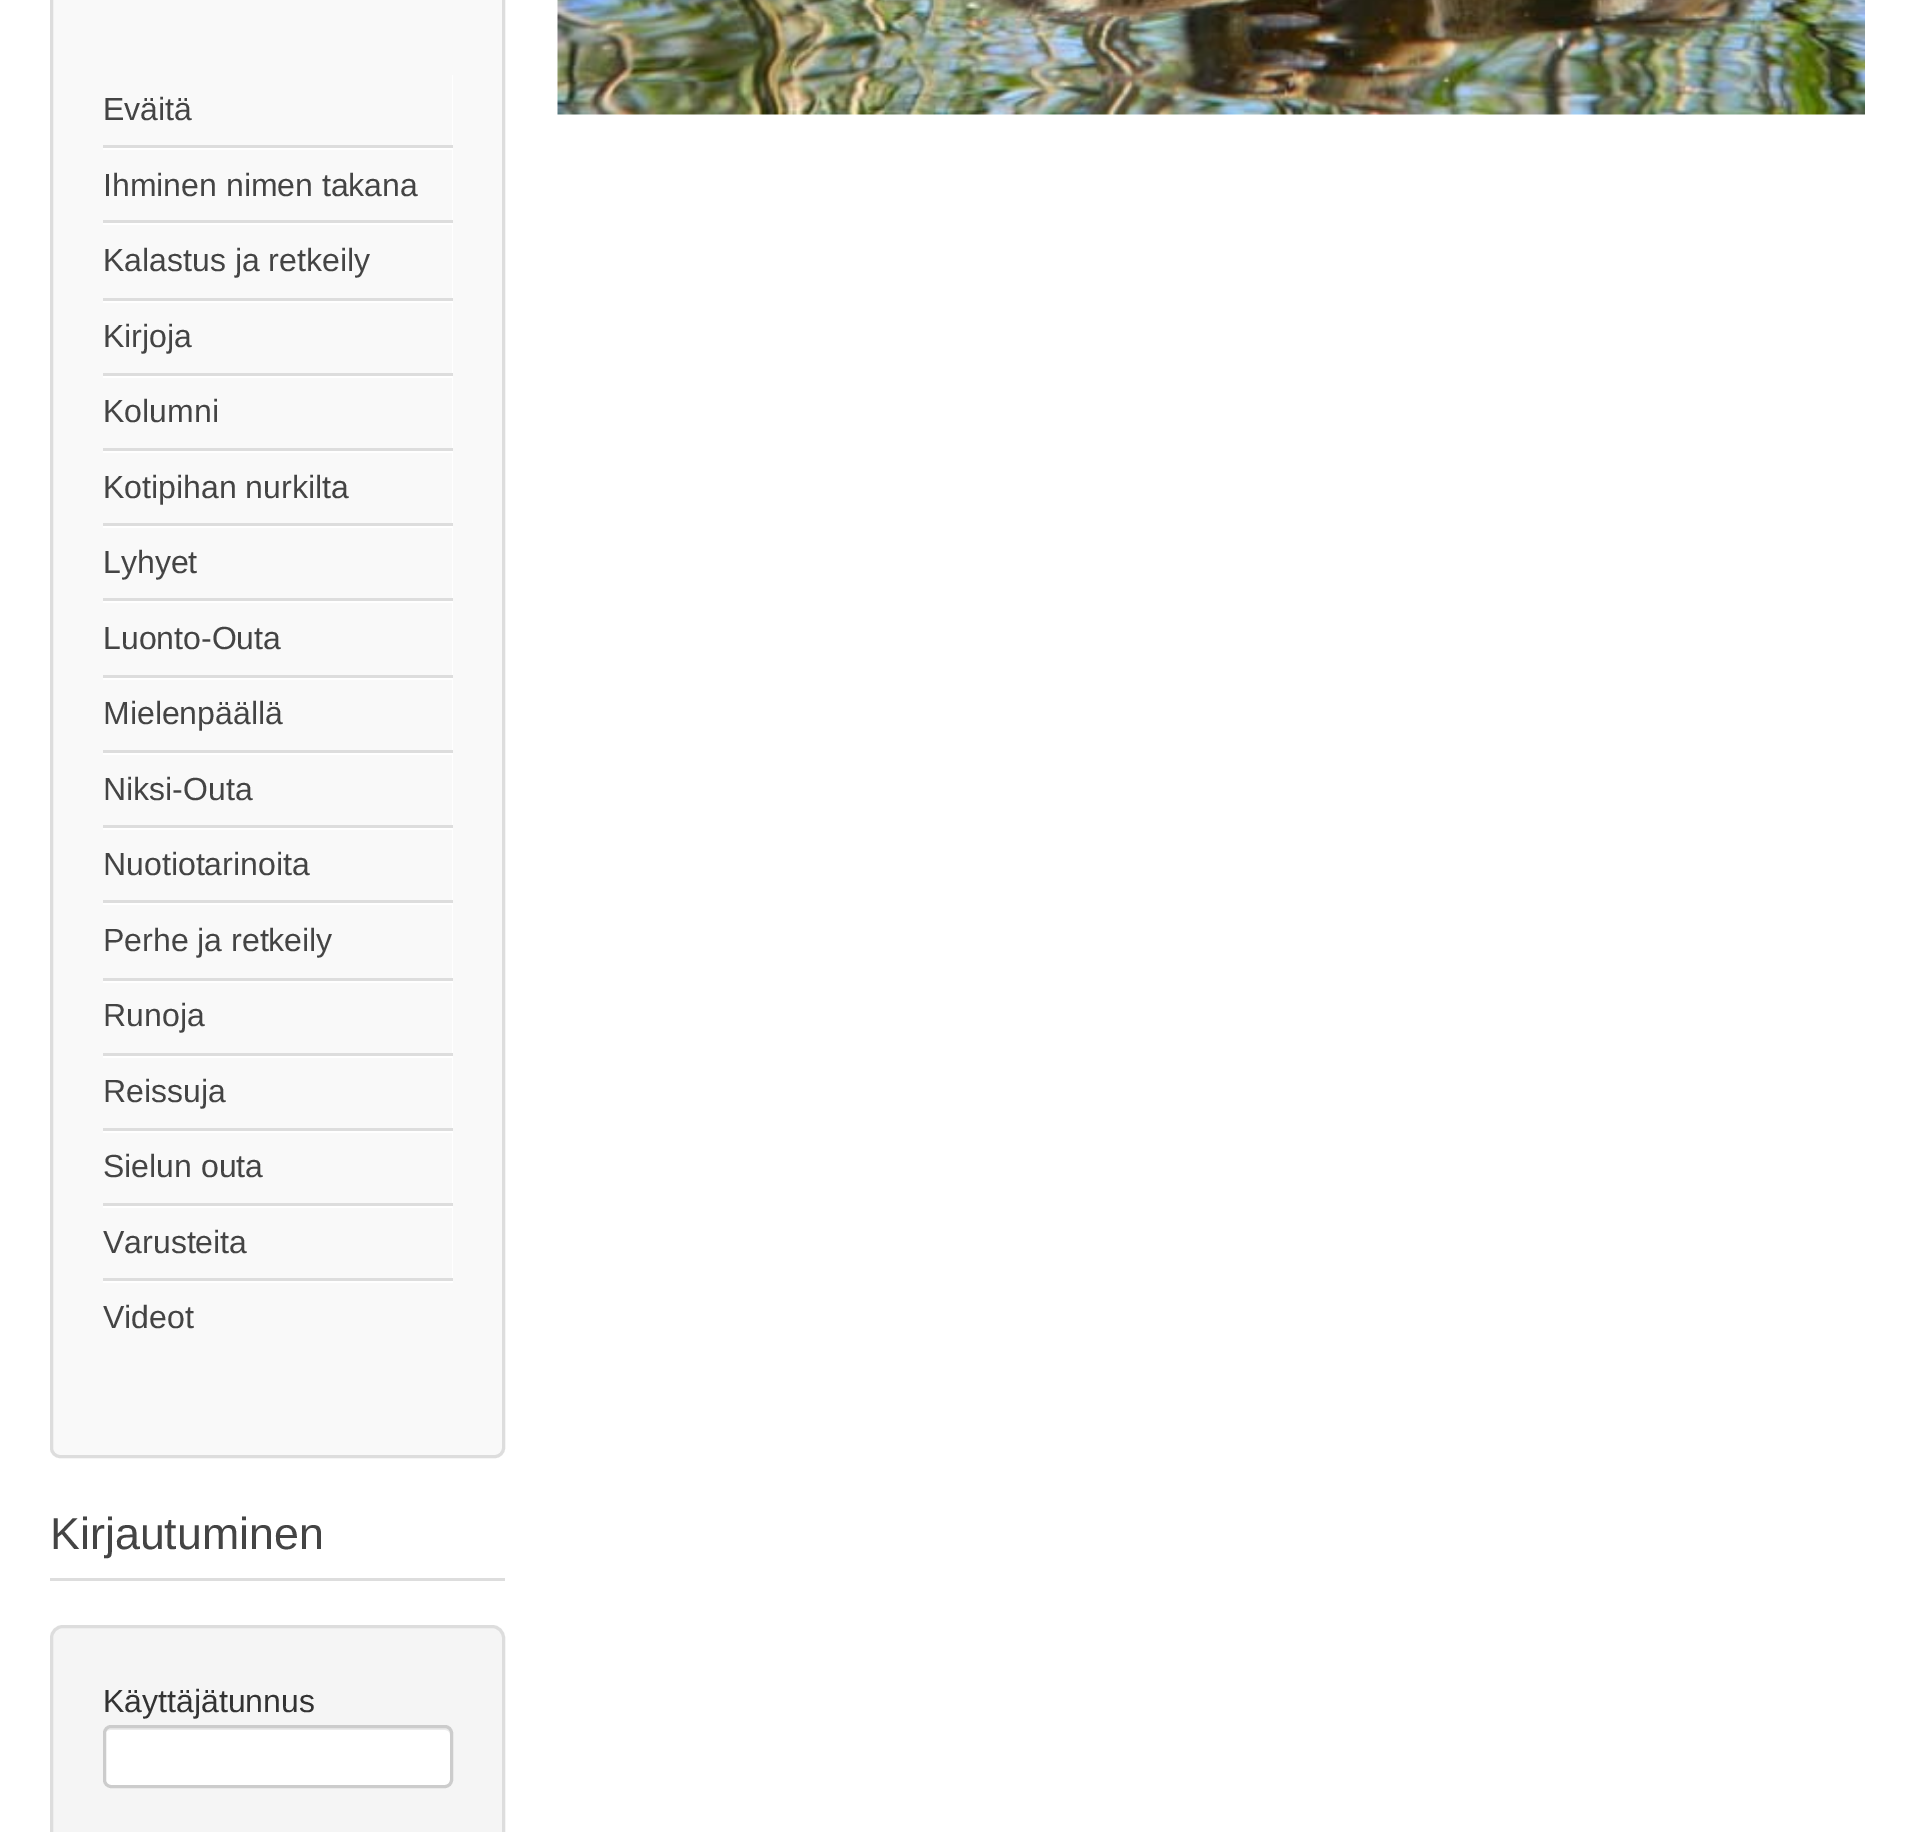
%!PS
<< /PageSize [1913 1832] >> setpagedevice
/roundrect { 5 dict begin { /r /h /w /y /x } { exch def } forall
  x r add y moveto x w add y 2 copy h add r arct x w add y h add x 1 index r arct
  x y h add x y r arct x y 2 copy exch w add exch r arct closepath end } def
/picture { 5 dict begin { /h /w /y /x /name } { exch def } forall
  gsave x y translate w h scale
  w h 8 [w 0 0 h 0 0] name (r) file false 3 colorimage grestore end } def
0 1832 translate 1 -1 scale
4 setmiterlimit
1 setgray
0 0 1913 1832 rectfill
(img1.rgb) 557 0 1308 115 picture
0.976 setgray
51.5 -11.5 452 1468 8.5 roundrect gsave fill grestore
0.867 setgray
3 setlinewidth
stroke
1 setgray
newpath 103 148 moveto 103 150 lineto 453 150 lineto 453 75 lineto 452 75 lineto 452 148 lineto closepath fill
0.867 setgray
103 145 350 3 rectfill
/LiberationSans-Regular [32 0 0 -32 0 0] selectfont
0.267 setgray
103 120 moveto (Eväitä) show
1 setgray
newpath 103 222 moveto 103 225 lineto 453 225 lineto 453 150 lineto 452 150 lineto 452 222 lineto closepath fill
0.867 setgray
103 220 350 3 rectfill
0.267 setgray
103 196 moveto (Ihminen nimen takana) show
1 setgray
newpath 103 300 moveto 103 303 lineto 453 303 lineto 453 225 lineto 452 225 lineto 452 300 lineto closepath fill
0.867 setgray
103 298 350 3 rectfill
0.267 setgray
103 271 moveto (Kalastus ja retkeily) show
1 setgray
newpath 103 375 moveto 103 378 lineto 453 378 lineto 453 303 lineto 452 303 lineto 452 375 lineto closepath fill
0.867 setgray
103 373 350 3 rectfill
0.267 setgray
103 347 moveto (Kirjoja) show
1 setgray
newpath 103 450 moveto 103 453 lineto 453 453 lineto 453 378 lineto 452 378 lineto 452 450 lineto closepath fill
0.867 setgray
103 448 350 3 rectfill
0.267 setgray
103 422 moveto (Kolumni) show
1 setgray
newpath 103 525 moveto 103 528 lineto 453 528 lineto 453 453 lineto 452 453 lineto 452 525 lineto closepath fill
0.867 setgray
103 523 350 3 rectfill
0.267 setgray
103 498 moveto (Kotipihan nurkilta) show
1 setgray
newpath 103 600 moveto 103 603 lineto 453 603 lineto 453 528 lineto 452 528 lineto 452 600 lineto closepath fill
0.867 setgray
103 598 350 3 rectfill
0.267 setgray
103 573 moveto (Lyhyet) show
1 setgray
newpath 103 678 moveto 103 680 lineto 453 680 lineto 453 603 lineto 452 603 lineto 452 678 lineto closepath fill
0.867 setgray
103 675 350 3 rectfill
0.267 setgray
103 649 moveto (Luonto-Outa) show
1 setgray
newpath 103 752 moveto 103 755 lineto 453 755 lineto 453 680 lineto 452 680 lineto 452 752 lineto closepath fill
0.867 setgray
103 750 350 3 rectfill
0.267 setgray
103 724 moveto (Mielenpäällä) show
1 setgray
newpath 103 828 moveto 103 830 lineto 453 830 lineto 453 755 lineto 452 755 lineto 452 828 lineto closepath fill
0.867 setgray
103 825 350 3 rectfill
0.267 setgray
103 800 moveto (Niksi-Outa) show
1 setgray
newpath 103 902 moveto 103 905 lineto 453 905 lineto 453 830 lineto 452 830 lineto 452 902 lineto closepath fill
0.867 setgray
103 900 350 3 rectfill
0.267 setgray
103 875 moveto (Nuotiotarinoita) show
1 setgray
newpath 103 980 moveto 103 983 lineto 453 983 lineto 453 905 lineto 452 905 lineto 452 980 lineto closepath fill
0.867 setgray
103 978 350 3 rectfill
0.267 setgray
103 951 moveto (Perhe ja retkeily) show
1 setgray
newpath 103 1055 moveto 103 1058 lineto 453 1058 lineto 453 983 lineto 452 983 lineto 452 1055 lineto closepath fill
0.867 setgray
103 1053 350 3 rectfill
0.267 setgray
103 1026 moveto (Runoja) show
1 setgray
newpath 103 1130 moveto 103 1133 lineto 453 1133 lineto 453 1058 lineto 452 1058 lineto 452 1130 lineto closepath fill
0.867 setgray
103 1128 350 3 rectfill
0.267 setgray
103 1102 moveto (Reissuja) show
1 setgray
newpath 103 1205 moveto 103 1208 lineto 453 1208 lineto 453 1133 lineto 452 1133 lineto 452 1205 lineto closepath fill
0.867 setgray
103 1203 350 3 rectfill
0.267 setgray
103 1177 moveto (Sielun outa) show
1 setgray
newpath 103 1280 moveto 103 1283 lineto 453 1283 lineto 453 1208 lineto 452 1208 lineto 452 1280 lineto closepath fill
0.867 setgray
103 1278 350 3 rectfill
0.267 setgray
103 1253 moveto (Varusteita) show
103 1328 moveto (Videot) show
0.867 setgray
50 1578 455 3 rectfill
/LiberationSans-Regular [44.75 0 0 -44.75 0 0] selectfont
0.267 setgray
50 1549 moveto (Kirjautuminen) show
0.961 setgray
51.5 1626.5 452 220 11.5 roundrect gsave fill grestore
0.867 setgray
stroke
/LiberationSans-Regular [32 0 0 -32 0 0] selectfont
0.2 setgray
103 1712 moveto (Käyttäjätunnus) show
1 setgray
103 1725 350 63 8 roundrect fill
0.925 setgray
newpath 110 1730 moveto 445 1730 lineto 448 1730 450 1732 450 1735 curveto 450 1732 449 1728 445 1728 curveto 110 1728 lineto 106 1728 105 1732 105 1735 curveto 105 1732 107 1730 110 1730 curveto closepath fill
0.8 setgray
104.5 1726.5 347 60 6.5 roundrect stroke
showpage
